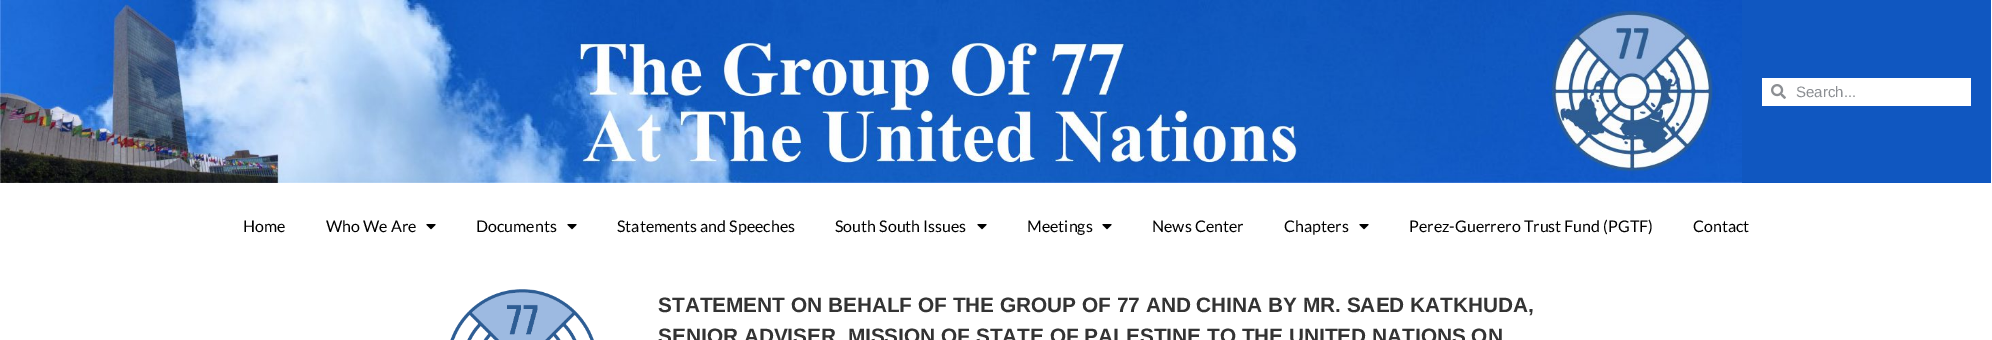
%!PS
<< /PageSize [1992 340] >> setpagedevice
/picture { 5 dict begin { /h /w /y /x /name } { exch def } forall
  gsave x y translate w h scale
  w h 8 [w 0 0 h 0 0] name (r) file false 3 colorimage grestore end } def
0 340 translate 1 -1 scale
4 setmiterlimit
1 setgray
0 0 1992 340 rectfill
(img1.rgb) 0 0 1742 183 picture
0.063 0.341 0.753 setrgbcolor
1742 0 249 183 rectfill
1 setgray
1762 78 209 28 rectfill
(img2.rgb) 1771 84 15 15 picture
/LiberationSans-Regular [15 0 0 -15 0 0] selectfont
0.549 0.561 0.576 setrgbcolor
1796 97 moveto (Search...) show
/Lato-Regular [16 0 0 -16 0 0] selectfont
0 setgray
243 232 moveto (Home) show
326 232 moveto (Who We Are) show
(img3.rgb) 426 224 10 6 picture
476 232 moveto (Documents) show
(img3.rgb) 567 224 10 6 picture
617 232 moveto (Statements and Speeches) show
835 232 moveto (South South Issues) show
(img3.rgb) 977 224 10 6 picture
1027 232 moveto (Meetings) show
(img3.rgb) 1102 224 10 6 picture
1152 232 moveto (News Center) show
1284 232 moveto (Chapters) show
(img3.rgb) 1359 224 10 6 picture
1409 232 moveto (Perez-Guerrero Trust Fund \(PGTF\)) show
1693 232 moveto (Contact) show
(img4.rgb) 450 289 144 51 picture
/LiberationSans-Bold [20.8 0 0 -20.8 0 0] selectfont
0.2 setgray
658 312 moveto (STATEMENT ON BEHALF OF THE GROUP OF 77 AND CHINA BY MR. SAED KATKHUDA,) show
658 343 moveto (SENIOR ADVISER, MISSION OF STATE OF PALESTINE TO THE UNITED NATIONS ON) show
showpage
